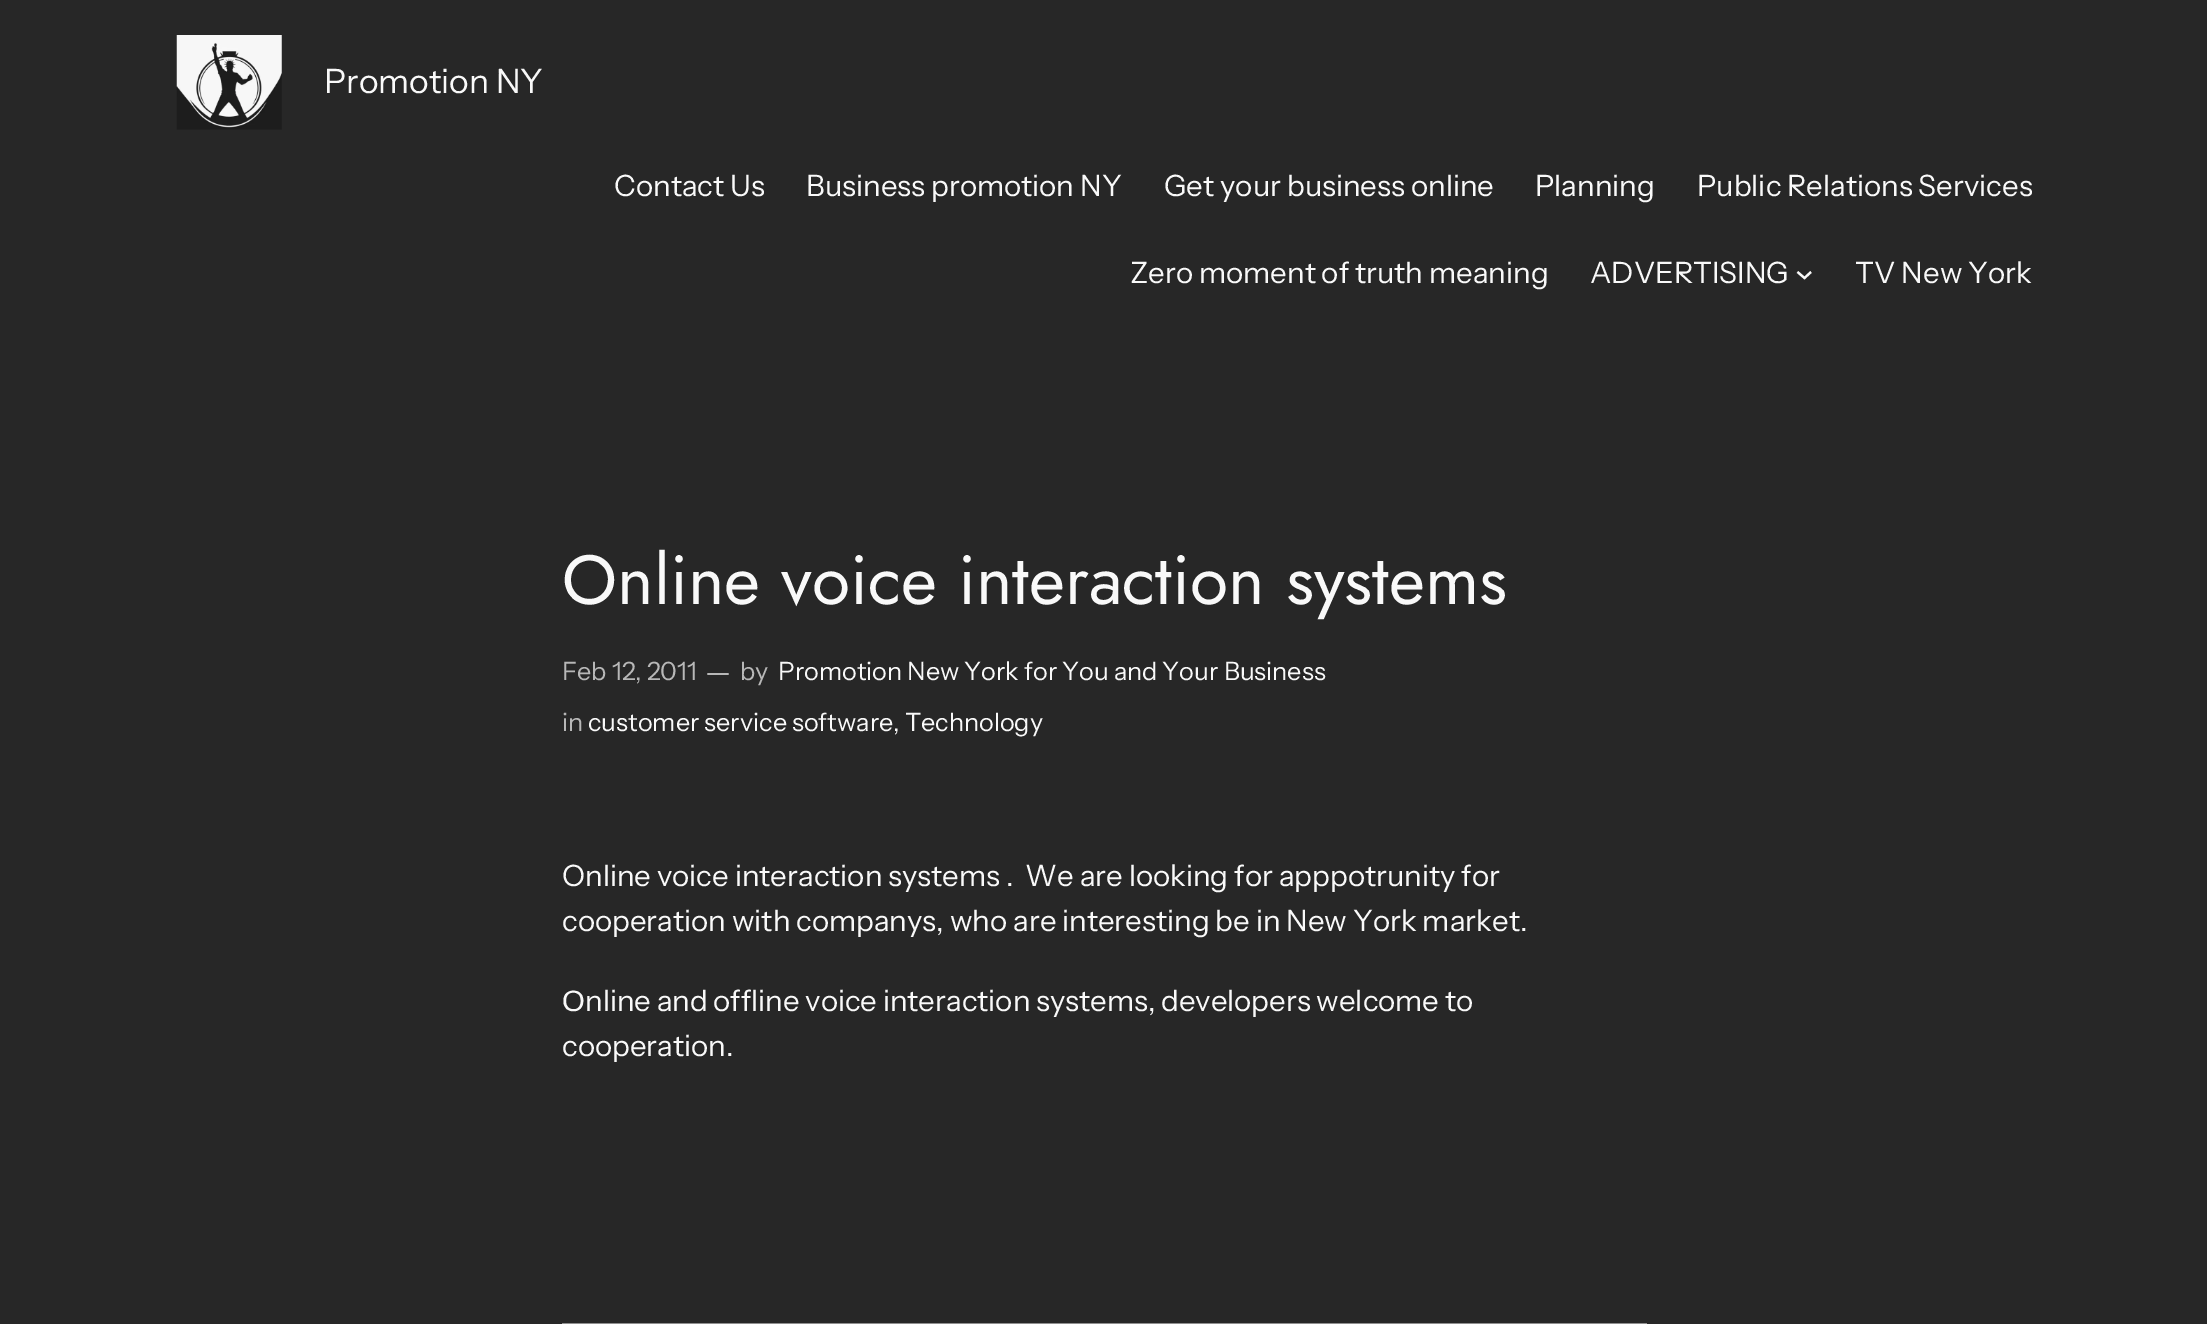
%!PS
<< /PageSize [2207 1324] >> setpagedevice
/picture { 5 dict begin { /h /w /y /x /name } { exch def } forall
  gsave x y translate w h scale
  w h 8 [w 0 0 h 0 0] name (r) file false 3 colorimage grestore end } def
0 1324 translate 1 -1 scale
4 setmiterlimit
0.153 setgray
0 0 2207 1324 rectfill
(img1.rgb) 176 35 106 95 picture
/InstrumentSans-Regular [33.5 0 0 -33.5 0 0] selectfont
0.976 setgray
324 93 moveto (Promotion NY) show
/InstrumentSans-Regular [29.4 0 0 -29.4 0 0] selectfont
614 196 moveto (Contact Us) show
806 196 moveto (Business promotion NY) show
1164 196 moveto (Get your business online) show
1535 196 moveto (Planning) show
1697 196 moveto (Public Relations Services) show
1130 283 moveto (Zero moment of truth meaning) show
1590 283 moveto (ADVERTISING) show
2.2 setlinewidth
newpath 1797.5 272 moveto 1804.5 278 lineto 1811 272 lineto stroke
1855 283 moveto (TV New York) show
/Jost-Regular [69.6 0 0 -69.6 0 0] selectfont
562 604 moveto (Online voice interaction systems) show
/InstrumentSans-Regular [25.2 0 0 -25.2 0 0] selectfont
0.718 setgray
562 680 moveto (Feb 12, 2011) show
/InstrumentSans-Regular [29.4 0 0 -29.4 0 0] selectfont
705 682 moveto (—) show
/InstrumentSans-Regular [25.2 0 0 -25.2 0 0] selectfont
740 680 moveto (by) show
0.976 setgray
778 680 moveto (Promotion New York for You and Your Business) show
0.718 setgray
562 731 moveto (in) show
0.976 setgray
588 731 moveto (customer service software, Technology) show
/InstrumentSans-Regular [29.4 0 0 -29.4 0 0] selectfont
562 886 moveto (Online voice interaction systems .  We are looking for apppotrunity for) show
562 931 moveto (cooperation with companys, who are interesting be in New York market.) show
/LiberationSans-Regular [29.4 0 0 -29.4 0 0] selectfont
562 1011 moveto (О) show
/InstrumentSans-Regular [29.4 0 0 -29.4 0 0] selectfont
585 1011 moveto -0.25 0 32 (nline and offline voice interaction systems, developers welcome to) widthshow
562 1056 moveto (cooperation.) show
0.565 setgray
562 1323 1085 1 rectfill
showpage
